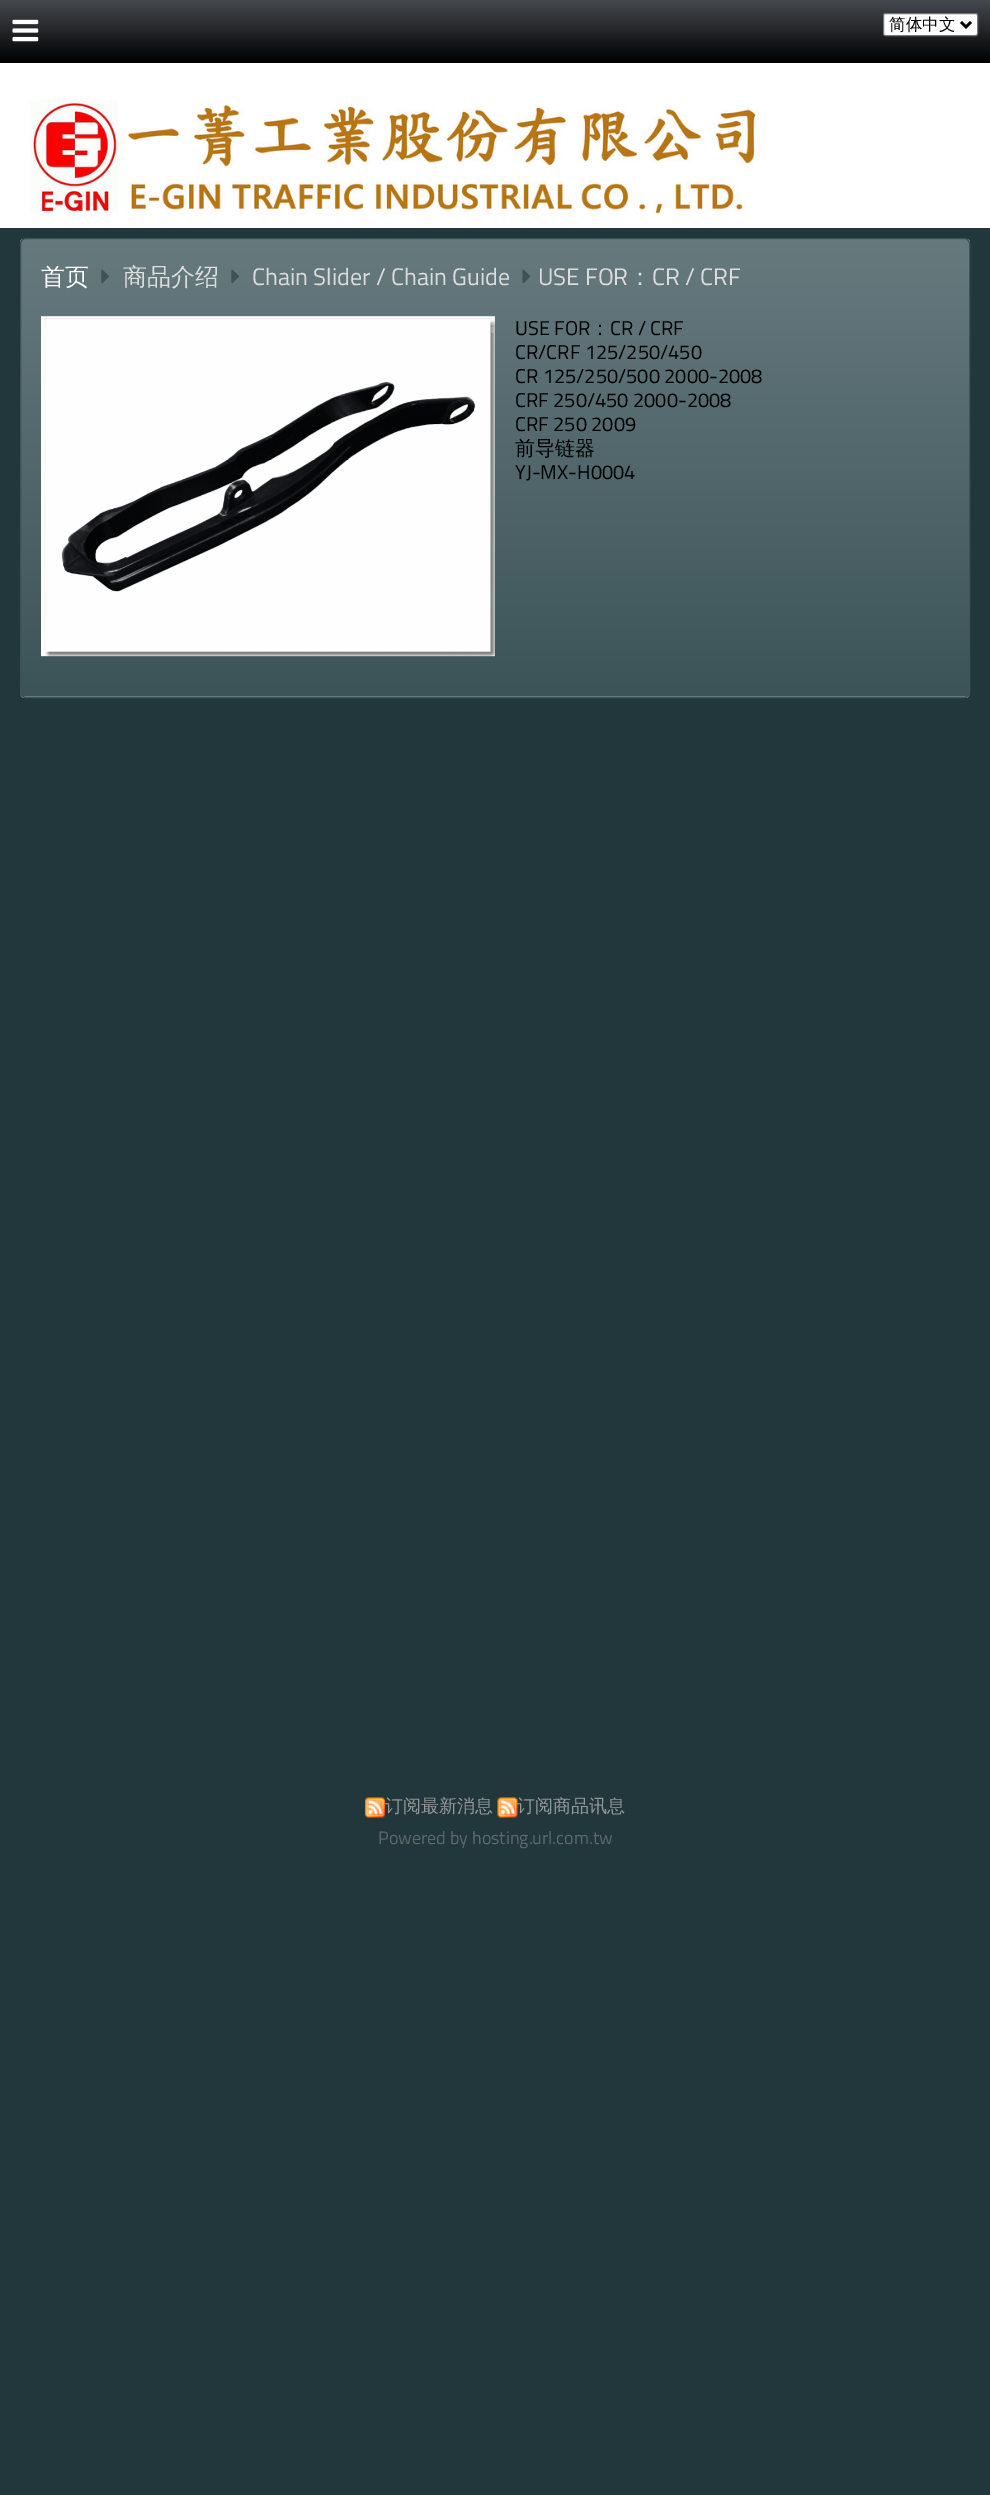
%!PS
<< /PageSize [990 2495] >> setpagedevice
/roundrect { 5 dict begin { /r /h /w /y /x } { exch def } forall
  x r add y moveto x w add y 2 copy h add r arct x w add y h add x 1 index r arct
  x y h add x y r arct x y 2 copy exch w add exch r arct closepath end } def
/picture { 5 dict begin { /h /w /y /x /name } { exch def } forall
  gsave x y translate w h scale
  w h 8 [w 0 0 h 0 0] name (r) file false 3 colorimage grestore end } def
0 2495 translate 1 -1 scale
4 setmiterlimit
0.129 0.216 0.231 setrgbcolor
0 0 990 2495 rectfill
gsave newpath 0 0 moveto 990 0 lineto 990 63 lineto 0 63 lineto closepath clip newpath
<< /ShadingType 2 /ColorSpace /DeviceRGB /Coords [495 0 495 63] /Extend [true true] /Function << /FunctionType 2 /Domain [0 1] /C0 [0.271 0.282 0.302] /C1 [0 0 0] /N 1 >> >> shfill grestore
(img1.rgb) 12 19 27 23 picture
1 setgray
883.5 13.5 94 22 2 roundrect gsave fill grestore
0.463 setgray
stroke
0 setgray
2.5 setlinewidth
newpath 961 22 moveto 966 27 lineto 971 22 lineto stroke
/WenQuanYiZenHei-Medium [16.5 0 0 -16.5 0 0] selectfont
889 30 moveto (简体中文) show
(img2.rgb) 0 63 990 165 picture
gsave
20 238 950 460 6 roundrect clip newpath
gsave newpath 20 239 moveto 970 239 lineto 970 696 lineto 20 696 lineto closepath clip newpath
<< /ShadingType 2 /ColorSpace /DeviceRGB /Coords [495 239 495 696] /Extend [true true] /Function << /FunctionType 3 /Domain [0 1] /Functions [<< /FunctionType 2 /Domain [0 1] /C0 [0.4 0.478 0.494] /C1 [0.4 0.478 0.494] /N 1 >> << /FunctionType 2 /Domain [0 1] /C0 [0.4 0.478 0.494] /C1 [0.235 0.325 0.345] /N 1 >>] /Bounds [0.01] /Encode [0 1 0 1] >> >> shfill grestore
gsave newpath 20 696 moveto 970 696 lineto 970 698 lineto 20 698 lineto closepath clip newpath
<< /ShadingType 2 /ColorSpace /DeviceRGB /Coords [495 696 495 1154] /Extend [true true] /Function << /FunctionType 3 /Domain [0 1] /Functions [<< /FunctionType 2 /Domain [0 1] /C0 [0.4 0.478 0.494] /C1 [0.4 0.478 0.494] /N 1 >> << /FunctionType 2 /Domain [0 1] /C0 [0.4 0.478 0.494] /C1 [0.235 0.325 0.345] /N 1 >>] /Bounds [0.01] /Encode [0 1 0 1] >> >> shfill grestore
grestore
0.235 0.325 0.345 setrgbcolor
1 setlinewidth
20.5 238.5 949 459 5.5 roundrect stroke
/WenQuanYiZenHei-Medium [24 0 0 -24 0 0] selectfont
1 setgray
41 285 moveto (首页) show
(img3.rgb) 101 269 8 15 picture
0.867 setgray
123 285 moveto (商品介绍) show
(img3.rgb) 231 269 8 15 picture
/TitilliumWeb-Regular [24 0 0 -24 0 0] selectfont
252 285 moveto (Chain Slider / Chain Guide) show
(img4.rgb) 522 269 9 15 picture
538 285 moveto (USE FOR) show
/WenQuanYiZenHei-Medium [24 0 0 -24 0 0] selectfont
628 285 moveto (：) show
/TitilliumWeb-Regular [24 0 0 -24 0 0] selectfont
652 285 moveto (CR / CRF) show
(img5.rgb) 41 316 454 341 picture
/TitilliumWeb-Regular [20 0 0 -20 0 0] selectfont
0 setgray
515 335 moveto (USE FOR) show
/WenQuanYiZenHei-Medium [20 0 0 -20 0 0] selectfont
590 335 moveto (：) show
/TitilliumWeb-Regular [20 0 0 -20 0 0] selectfont
610 335 moveto (CR / CRF) show
515 359 moveto (CR/CRF 125/250/450) show
515 383 moveto (CR 125/250/500 2000-2008) show
515 407 moveto (CRF 250/450 2000-2008) show
515 431 moveto (CRF 250 2009) show
/WenQuanYiZenHei-Medium [20 0 0 -20 0 0] selectfont
515 455 moveto (前导链器) show
/TitilliumWeb-Regular [20 0 0 -20 0 0] selectfont
515 479 moveto (YJ-MX-H0004) show
(img6.rgb) 365 1797 20 21 picture
/WenQuanYiZenHei-Medium [18 0 0 -18 0 0] selectfont
0.6 setgray
385 1812 moveto (订阅最新消息) show
(img7.rgb) 497 1797 21 21 picture
517 1812 moveto (订阅商品讯息) show
/TitilliumWeb-Regular [18 0 0 -18 0 0] selectfont
0.365 0.408 0.416 setrgbcolor
378 1844 moveto (Powered by hosting.url.com.tw) show
showpage
